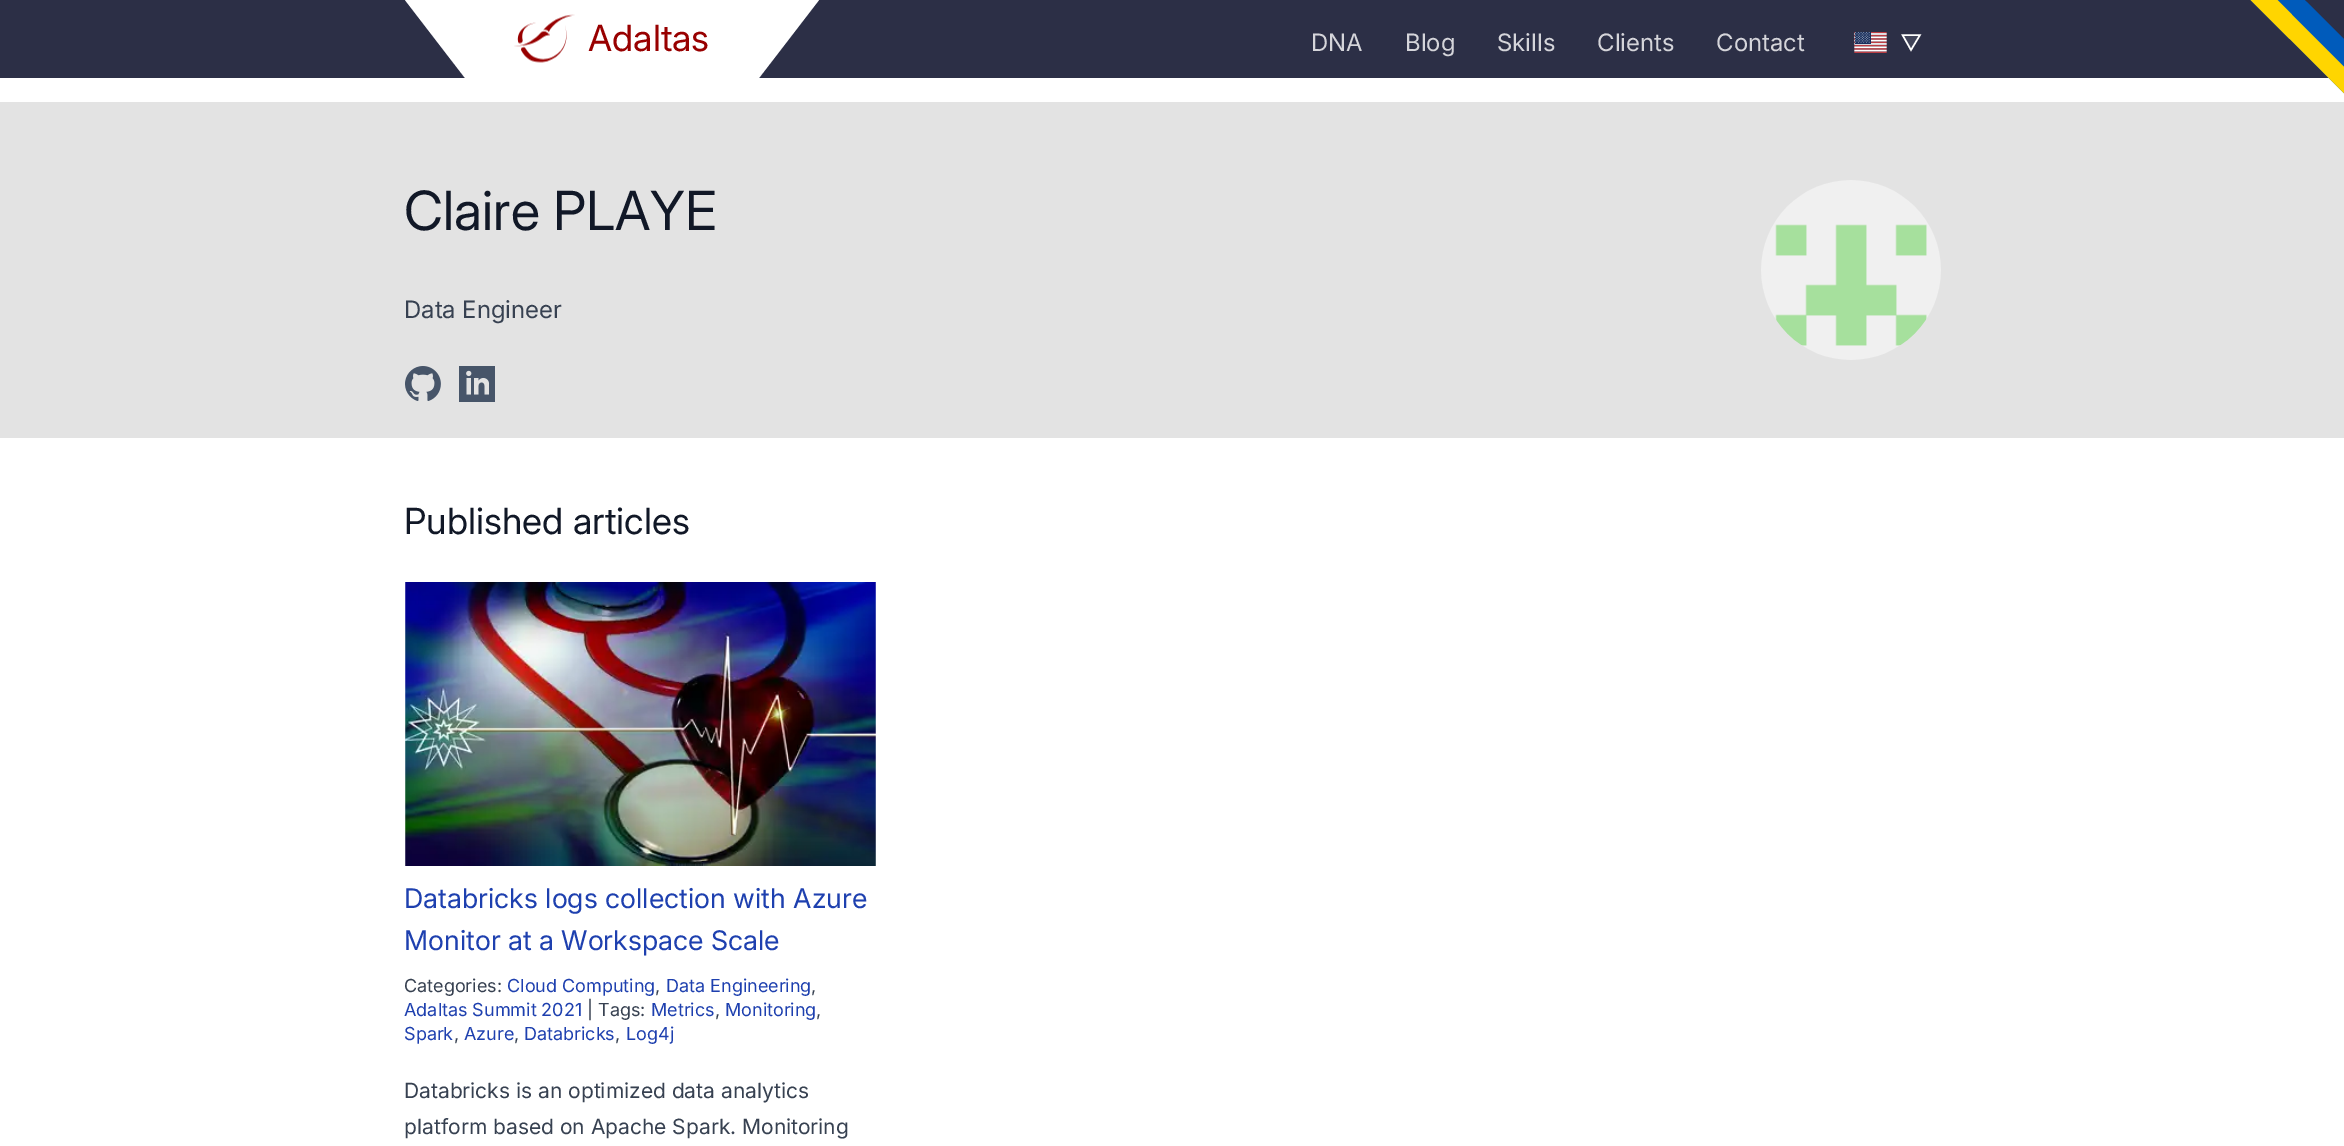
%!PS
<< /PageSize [2344 1146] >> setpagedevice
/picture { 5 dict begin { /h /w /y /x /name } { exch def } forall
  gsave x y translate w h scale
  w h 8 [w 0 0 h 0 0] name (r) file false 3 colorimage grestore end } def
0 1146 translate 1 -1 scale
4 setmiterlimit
1 setgray
0 0 2344 1146 rectfill
0.173 0.184 0.275 setrgbcolor
0 0 2344 78 rectfill
gsave
405 0 414 78 rectclip
1 setgray
newpath 612 269 moveto 405 0 lineto 819 0 lineto closepath fill
grestore
(img1.rgb) 514 14 61 49 picture
/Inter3-Regular [36 0 0 -36 0 0] selectfont
0.596 0 0 setrgbcolor
588 51 moveto (Adaltas) show
/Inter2-Regular [24 0 0 -24 0 0] selectfont
0.835 0.835 0.855 setrgbcolor
1311 51 moveto (DNA) show
1405 51 moveto (Blog) show
1497 51 moveto (Skills) show
1597 51 moveto (Clients) show
1716 51 moveto (Contact) show
(img2.rgb) 1854 32 33 21 picture
0.255 0.267 0.349 setrgbcolor
newpath 1911 50 moveto 1902.5 35 lineto 1920 35 lineto closepath gsave fill grestore
1 setgray
1.5 setlinewidth
2 setlinecap
stroke
0 0.357 0.733 setrgbcolor
newpath 2118 -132 moveto 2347 96 lineto 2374 69 lineto 2102 -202 lineto 2075 -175 lineto closepath fill
1 0.835 0 setrgbcolor
newpath 2118 -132 moveto 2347 96 lineto 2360 83 lineto 2089 -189 lineto 2075 -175 lineto closepath fill
0.89 setgray
0 102 2344 336 rectfill
/Inter-Regular [54 0 0 -54 0 0] selectfont
0.067 0.094 0.153 setrgbcolor
404 230 moveto (Claire PLAYE) show
/Inter2-Regular [24 0 0 -24 0 0] selectfont
0.216 0.255 0.318 setrgbcolor
404 318 moveto (Data Engineer) show
(img3.rgb) 405 366 36 35 picture
(img4.rgb) 459 366 36 36 picture
(img5.rgb) 1761 180 180 180 picture
/Inter3-Regular [36 0 0 -36 0 0] selectfont
0.067 0.094 0.153 setrgbcolor
404 534 moveto (Published articles) show
(img6.rgb) 405 582 471 284 picture
/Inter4-Regular [27 0 0 -27 0 0] selectfont
0.118 0.251 0.686 setrgbcolor
404 908 moveto (Databricks logs collection with Azure) show
404 950 moveto (Monitor at a Workspace Scale) show
/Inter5-Regular [18 0 0 -18 0 0] selectfont
0.216 0.255 0.318 setrgbcolor
404 992 moveto (Categories:) show
0.118 0.251 0.686 setrgbcolor
507 992 moveto (Cloud Computing) show
0.216 0.255 0.318 setrgbcolor
655 992 moveto (,) show
0.118 0.251 0.686 setrgbcolor
666 992 moveto (Data Engineering) show
0.216 0.255 0.318 setrgbcolor
811 992 moveto (,) show
0.118 0.251 0.686 setrgbcolor
404 1016 moveto (Adaltas Summit 2021) show
0.216 0.255 0.318 setrgbcolor
587 1016 moveto (| Tags:) show
0.118 0.251 0.686 setrgbcolor
651 1016 moveto (Metrics) show
0.216 0.255 0.318 setrgbcolor
715 1016 moveto (,) show
0.118 0.251 0.686 setrgbcolor
725 1016 moveto (Monitoring) show
0.216 0.255 0.318 setrgbcolor
816 1016 moveto (,) show
0.118 0.251 0.686 setrgbcolor
404 1040 moveto (Spark) show
0.216 0.255 0.318 setrgbcolor
454 1040 moveto (,) show
0.118 0.251 0.686 setrgbcolor
464 1040 moveto (Azure) show
0.216 0.255 0.318 setrgbcolor
514 1040 moveto (,) show
0.118 0.251 0.686 setrgbcolor
524 1040 moveto (Databricks) show
0.216 0.255 0.318 setrgbcolor
615 1040 moveto (,) show
0.118 0.251 0.686 setrgbcolor
626 1040 moveto (Log4j) show
/Inter5-Regular [21 0 0 -21 0 0] selectfont
0.216 0.255 0.318 setrgbcolor
404 1098 moveto (Databricks is an optimized data analytics) show
404 1134 moveto (platform based on Apache Spark. Monitoring) show
showpage
